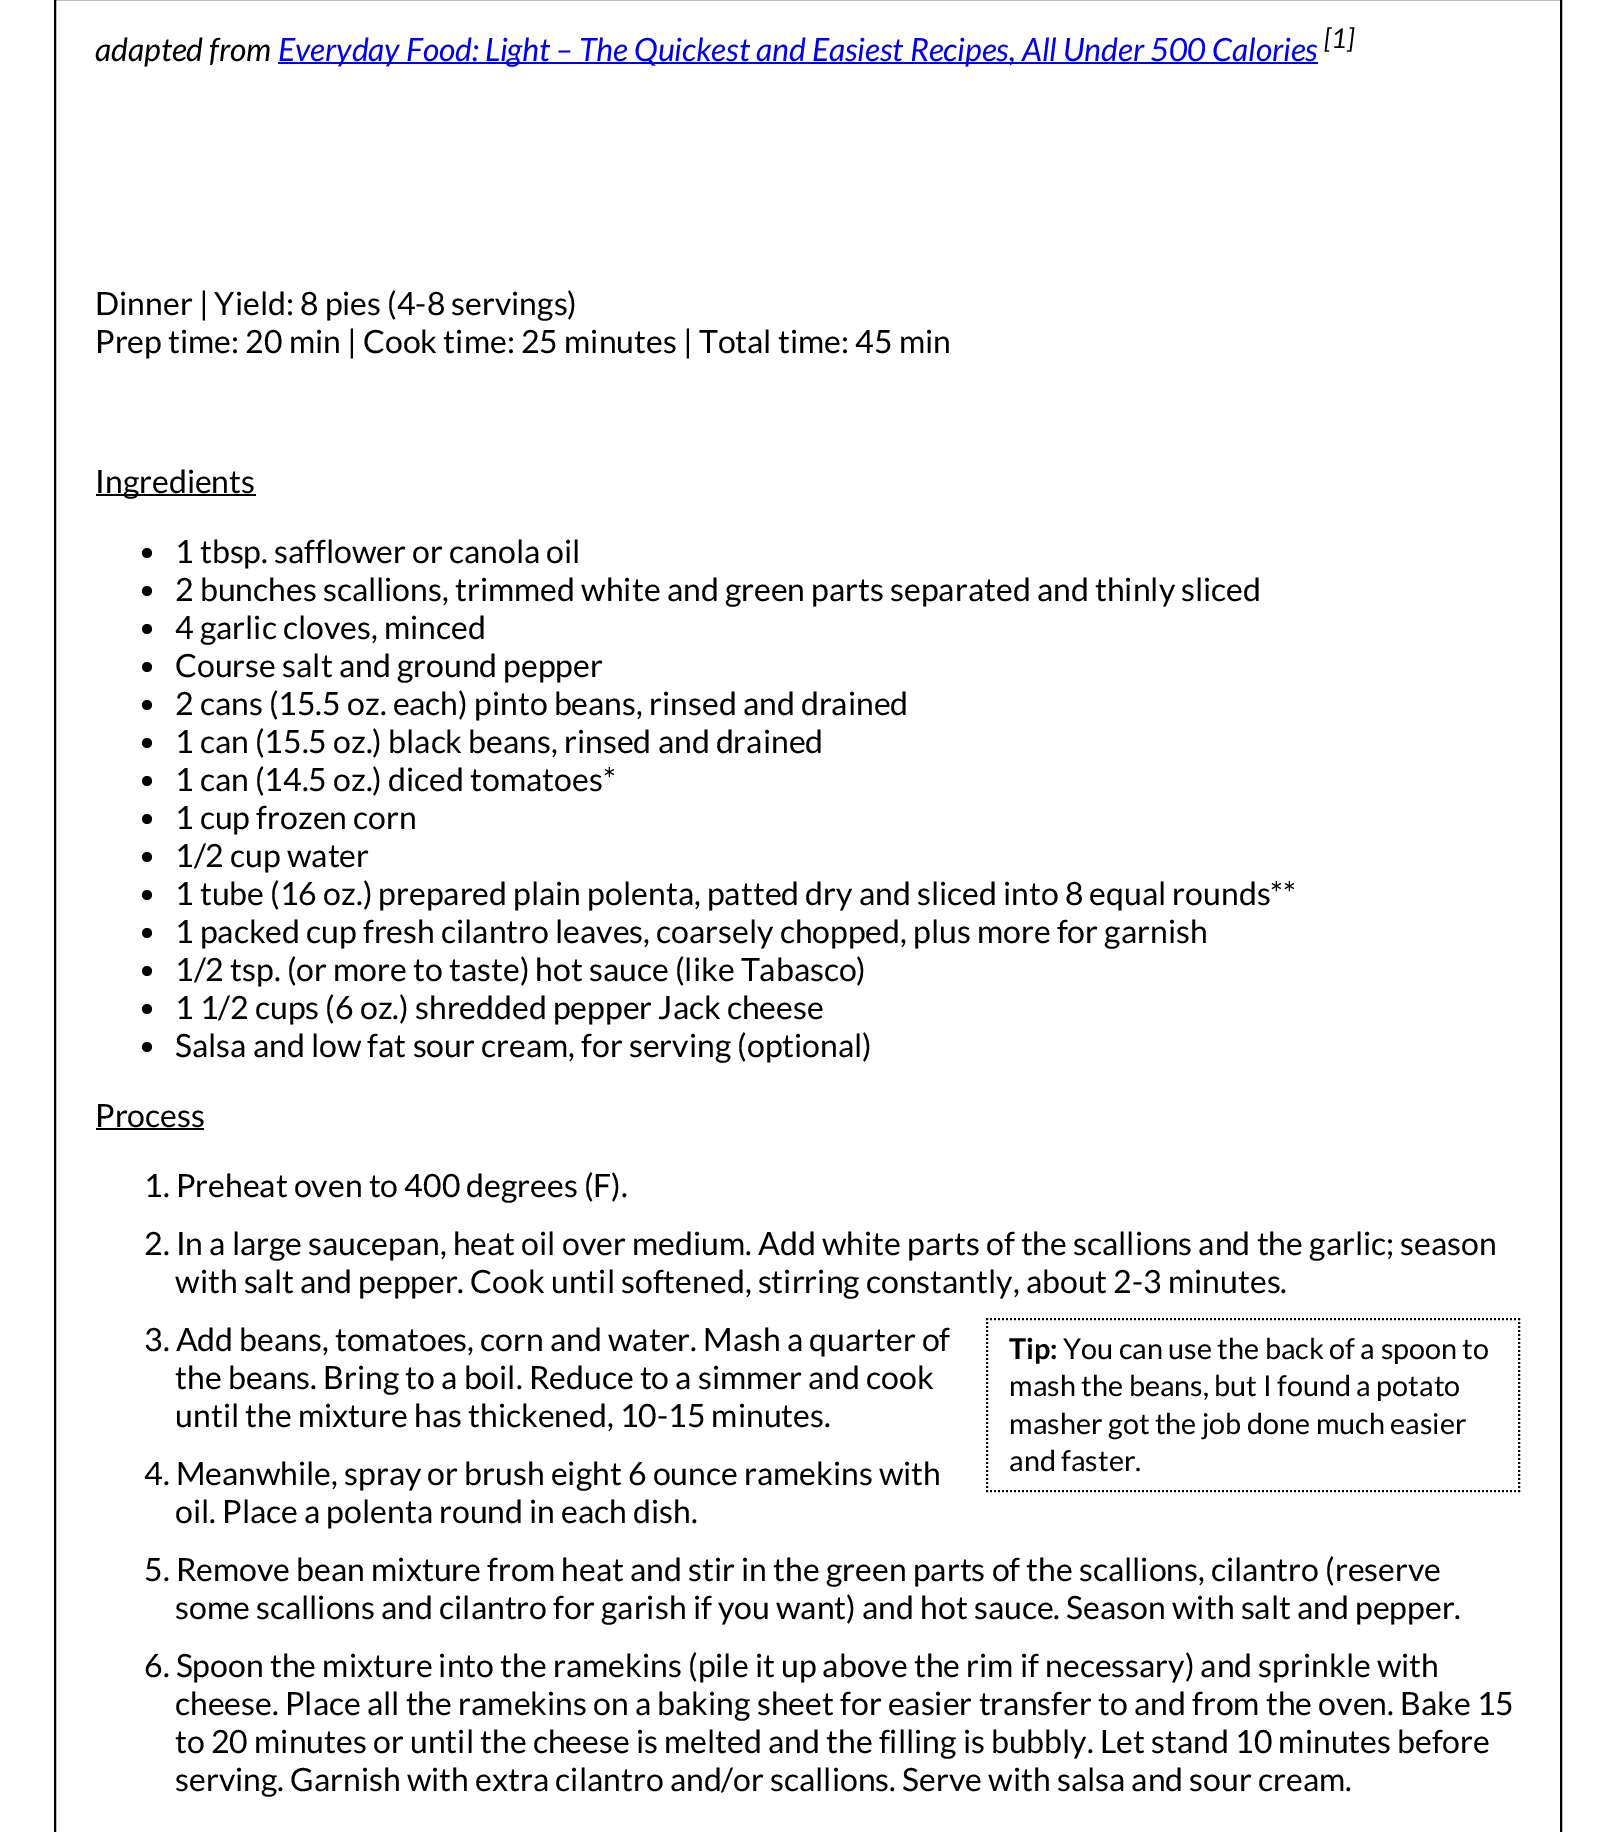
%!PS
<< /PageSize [1615 1832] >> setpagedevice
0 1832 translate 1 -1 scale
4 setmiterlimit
1 setgray
0 0 1615 1832 rectfill
0 setgray
2 setlinewidth
55 -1 1506 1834 rectstroke
/Lato-Italic [32 0 0 -32 0 0] selectfont
95 61 moveto (adapted from) show
0 0 0.933 setrgbcolor
278 62 1040 2 rectfill
278 61 moveto (Everyday Food: Light – The Quickest and Easiest Recipes, All Under 500 Calories) show
/Lato-Italic [27 0 0 -27 0 0] selectfont
0 setgray
1324 48 moveto ([1]) show
/Lato-Regular [32 0 0 -32 0 0] selectfont
95 315 moveto (Dinner | Yield: 8 pies \(4-8 servings\)) show
95 353 moveto (Prep time: 20 min | Cook time: 25 minutes | Total time: 45 min) show
96 494 160 2 rectfill
95 493 moveto (Ingredients) show
newpath 147 553 5 0 360 arc closepath fill
175 563 moveto (1 tbsp. safflower or canola oil) show
newpath 147 591 5 0 360 arc closepath fill
175 601 moveto (2 bunches scallions, trimmed white and green parts separated and thinly sliced) show
newpath 147 629 5 0 360 arc closepath fill
175 639 moveto (4 garlic cloves, minced) show
newpath 147 667 5 0 360 arc closepath fill
175 677 moveto (Course salt and ground pepper) show
newpath 147 705 5 0 360 arc closepath fill
175 715 moveto (2 cans \(15.5 oz. each\) pinto beans, rinsed and drained) show
newpath 147 743 5 0 360 arc closepath fill
175 753 moveto (1 can \(15.5 oz.\) black beans, rinsed and drained) show
newpath 147 781 5 0 360 arc closepath fill
175 791 moveto (1 can \(14.5 oz.\) diced tomatoes*) show
newpath 147 819 5 0 360 arc closepath fill
175 829 moveto (1 cup frozen corn) show
newpath 147 857 5 0 360 arc closepath fill
175 867 moveto (1/2 cup water) show
newpath 147 895 5 0 360 arc closepath fill
175 905 moveto (1 tube \(16 oz.\) prepared plain polenta, patted dry and sliced into 8 equal rounds**) show
newpath 147 933 5 0 360 arc closepath fill
175 943 moveto (1 packed cup fresh cilantro leaves, coarsely chopped, plus more for garnish) show
newpath 147 971 5 0 360 arc closepath fill
175 981 moveto (1/2 tsp. \(or more to taste\) hot sauce \(like Tabasco\)) show
newpath 147 1009 5 0 360 arc closepath fill
175 1019 moveto (1 1/2 cups \(6 oz.\) shredded pepper Jack cheese) show
newpath 147 1047 5 0 360 arc closepath fill
175 1057 moveto (Salsa and low fat sour cream, for serving \(optional\)) show
95 1127 moveto (Process) show
96 1128 108 2 rectfill
144 1197 moveto (1. Preheat oven to 400 degrees \(F\).) show
144 1255 moveto (2. In a large saucepan, heat oil over medium. Add white parts of the scallions and the garlic; season) show
175 1293 moveto (with salt and pepper. Cook until softened, stirring constantly, about 2-3 minutes.) show
144 1351 moveto (3. Add beans, tomatoes, corn and water. Mash a quarter of) show
[2 2] 0 setdash
newpath 986 1319 moveto 1520 1319 lineto stroke
newpath 1519 1318 moveto 1519 1492 lineto stroke
newpath 986 1491 moveto 1520 1491 lineto stroke
newpath 987 1318 moveto 987 1492 lineto stroke
/Lato-Bold [28.75 0 0 -28.75 0 0] selectfont
1009 1359 moveto (Tip:) show
/Lato-Regular [28.75 0 0 -28.75 0 0] selectfont
1063 1359 moveto (You can use the back of a spoon to) show
1009 1396 moveto (mash the beans, but I found a potato) show
1009 1434 moveto (masher got the job done much easier) show
1009 1471 moveto (and faster.) show
/Lato-Regular [32 0 0 -32 0 0] selectfont
175 1389 moveto (the beans. Bring to a boil. Reduce to a simmer and cook) show
175 1427 moveto (until the mixture has thickened, 10-15 minutes.) show
144 1485 moveto (4. Meanwhile, spray or brush eight 6 ounce ramekins with) show
175 1523 moveto (oil. Place a polenta round in each dish.) show
144 1581 moveto (5. Remove bean mixture from heat and stir in the green parts of the scallions, cilantro \(reserve) show
175 1619 moveto (some scallions and cilantro for garish if you want\) and hot sauce. Season with salt and pepper.) show
144 1677 moveto (6. Spoon the mixture into the ramekins \(pile it up above the rim if necessary\) and sprinkle with) show
175 1715 moveto (cheese. Place all the ramekins on a baking sheet for easier transfer to and from the oven. Bake 15) show
175 1753 moveto (to 20 minutes or until the cheese is melted and the filling is bubbly. Let stand 10 minutes before) show
175 1791 moveto (serving. Garnish with extra cilantro and/or scallions. Serve with salsa and sour cream.) show
showpage
